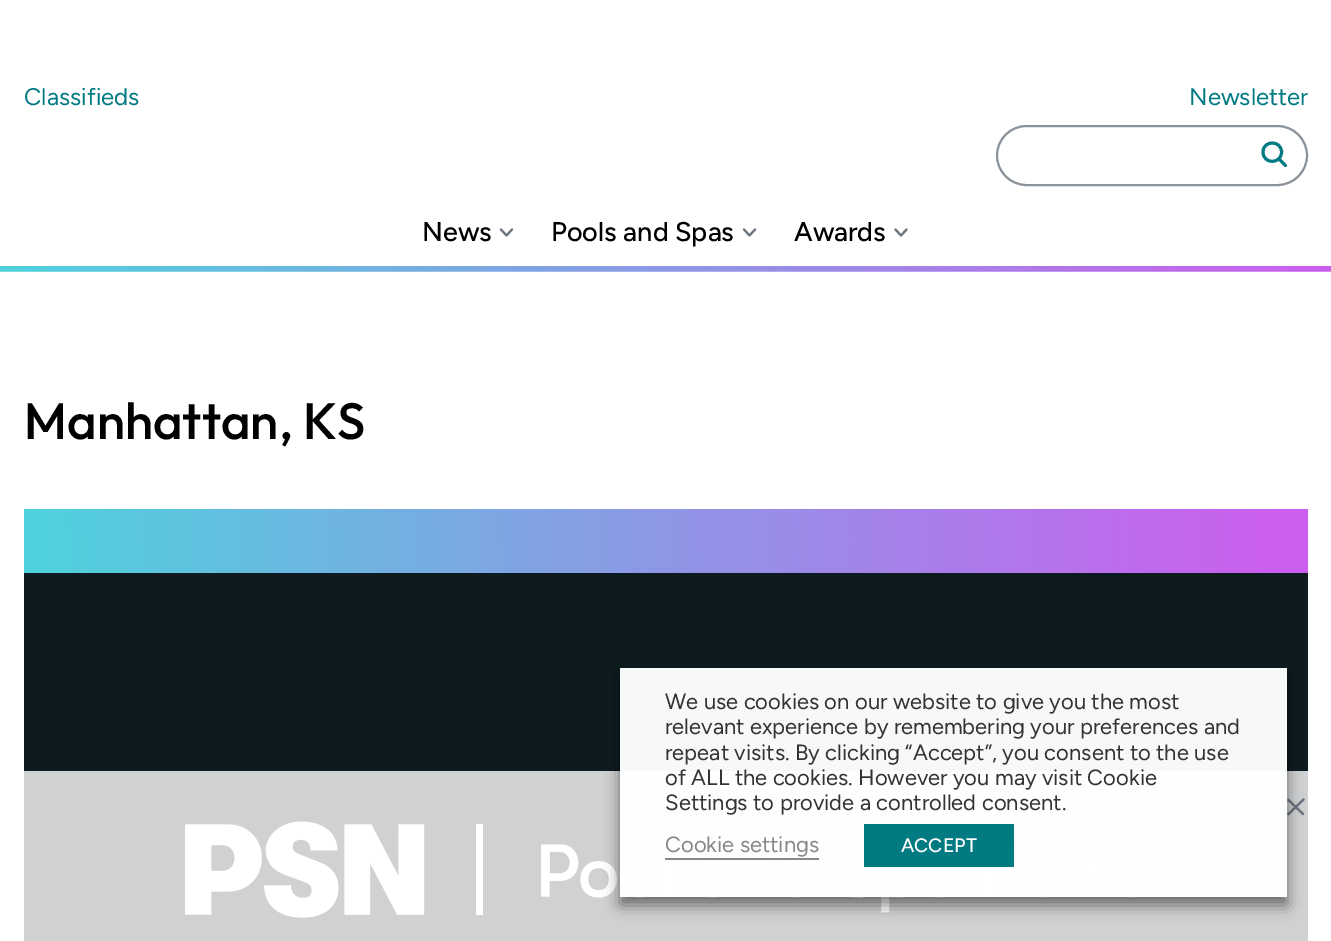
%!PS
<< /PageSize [1331 941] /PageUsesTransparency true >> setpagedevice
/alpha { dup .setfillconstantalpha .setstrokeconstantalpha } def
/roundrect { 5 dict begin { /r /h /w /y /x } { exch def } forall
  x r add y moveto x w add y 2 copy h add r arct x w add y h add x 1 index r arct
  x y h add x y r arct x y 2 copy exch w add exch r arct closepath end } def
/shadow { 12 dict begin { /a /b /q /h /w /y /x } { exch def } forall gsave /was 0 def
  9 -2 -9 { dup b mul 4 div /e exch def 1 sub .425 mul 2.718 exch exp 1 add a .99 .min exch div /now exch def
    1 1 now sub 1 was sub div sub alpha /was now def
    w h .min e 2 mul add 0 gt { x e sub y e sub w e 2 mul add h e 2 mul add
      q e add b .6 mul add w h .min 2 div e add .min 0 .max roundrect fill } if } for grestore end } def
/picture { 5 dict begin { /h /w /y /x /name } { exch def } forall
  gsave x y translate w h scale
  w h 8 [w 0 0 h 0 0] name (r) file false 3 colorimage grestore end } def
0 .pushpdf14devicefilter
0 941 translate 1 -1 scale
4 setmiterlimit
1 setgray
0 0 1331 941 rectfill
/Figtree-Regular [24 0 0 -24 0 0] selectfont
0.008 0.478 0.514 setrgbcolor
24 105 moveto (Classifieds) show
1189 105 moveto (Newsletter) show
0.545 0.573 0.612 setrgbcolor
2 setlinewidth
997 126 310 59 29.5 roundrect stroke
0.008 0.478 0.514 setrgbcolor
3 setlinewidth
newpath 1281.5 152 moveto 1281.5 164.5 1263 164.5 1263 152 curveto 1263 140 1281.5 140 1281.5 152 curveto closepath stroke
1 setlinecap
newpath 1280 160 moveto 1285.5 165.5 lineto stroke
/Figtree-Medium [27 0 0 -27 0 0] selectfont
0 setgray
422 241 moveto (News) show
0.427 0.459 0.502 setrgbcolor
2.1 setlinewidth
1 setlinejoin
newpath 501 229.5 moveto 506.5 235.5 lineto 512 229.5 lineto stroke
0 setgray
551 241 moveto (Pools and Spas) show
0.427 0.459 0.502 setrgbcolor
newpath 744 229.5 moveto 749.5 235.5 lineto 755 229.5 lineto stroke
0 setgray
794 241 moveto (Awards) show
0.427 0.459 0.502 setrgbcolor
newpath 895.5 229.5 moveto 901 235.5 lineto 906.5 229.5 lineto stroke
(img1.rgb) 0 266 1331 6 picture
(img2.rgb) 0 271 1331 1 picture
/Outfit-Medium [51 0 0 -51 0 0] selectfont
0 setgray
24 439 moveto (Manhattan, KS) show
(img3.rgb) 24 509 1284 432 picture
0.8 alpha
1 setgray
24 771 1284 170 rectfill
1 alpha
0.427 0.459 0.502 setrgbcolor
2.2 setlinewidth
newpath 1288.5 800 moveto 1303 814 lineto 1303.5 799.5 moveto 1288.5 814 lineto stroke
gsave
newpath 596 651 moveto 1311 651 lineto 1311 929 lineto 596 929 lineto closepath 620 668 moveto 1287 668 lineto 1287 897 lineto 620 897 lineto closepath eoclip newpath
0 setgray
620 675 667 230 0 7.5 0.5 shadow
grestore
0.97 alpha
1 setgray
620 668 667 229 rectfill
/Figtree-Regular [22 0 0 -22 0 0] selectfont
1 alpha
0.2 setgray
665 709 moveto (We use cookies on our website to give you the most) show
665 734 moveto (relevant experience by remembering your preferences and) show
665 760 moveto (repeat visits. By clicking “Accept”, you consent to the use) show
665 785 moveto (of ALL the cookies. However you may visit Cookie) show
665 810 moveto (Settings to provide a controlled consent.) show
0.537 0.533 0.533 setrgbcolor
665 852 moveto (Cookie settings) show
665 858 154 2 rectfill
0.004 0.478 0.51 setrgbcolor
864 824 150 43 rectfill
/Figtree-Medium [19.5 0 0 -19.5 0 0] selectfont
1 setgray
901 852 moveto (ACCEPT) show
.poppdf14devicefilter showpage
